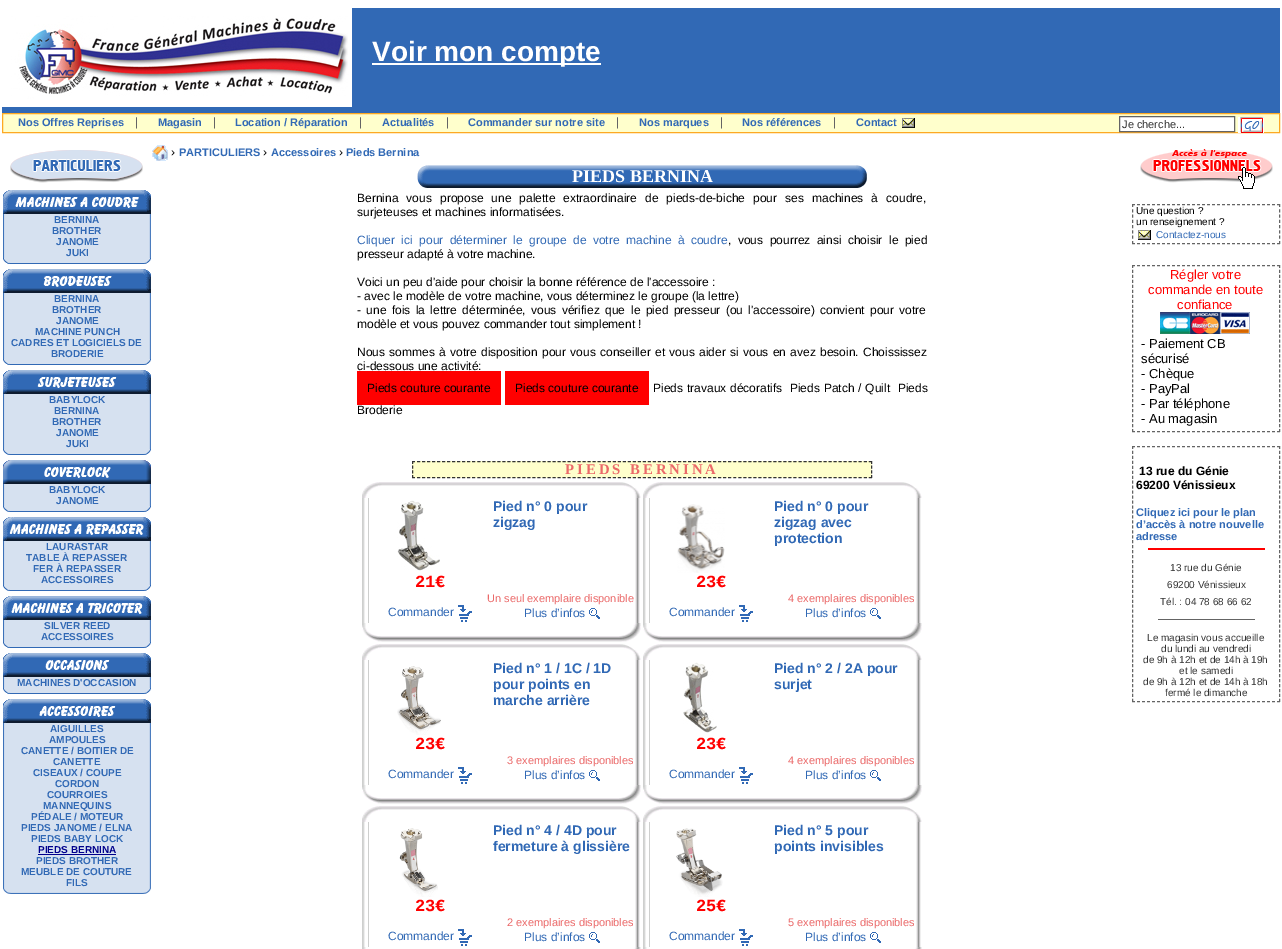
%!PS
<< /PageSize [1282 949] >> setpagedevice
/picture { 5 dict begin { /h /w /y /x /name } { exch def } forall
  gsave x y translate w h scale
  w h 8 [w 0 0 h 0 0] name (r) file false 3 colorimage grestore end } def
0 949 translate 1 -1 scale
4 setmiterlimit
1 setgray
0 0 1282 949 rectfill
0.192 0.412 0.71 setrgbcolor
352 8 928 99 rectfill
(img1.rgb) 2 8 350 99 picture
1 setgray
372 63 229 2 rectfill
/LiberationSans-Bold [28 0 0 -28 0 0] selectfont
372 61 moveto (Voir mon compte) show
0.192 0.412 0.71 setrgbcolor
2 107 1278 6 rectfill
1 1 0.8 setrgbcolor
newpath 2.5 113.5 moveto 1279.5 113.5 lineto 1279.5 132.5 lineto 2.5 132.5 lineto closepath gsave fill grestore
0.992 0.663 0.137 setrgbcolor
stroke
/LiberationSans-Bold [11 0 0 -11 0 0] selectfont
0.192 0.412 0.71 setrgbcolor
18 126 moveto (Nos Offres Reprises) show
/LiberationSans-Regular [12 0 0 -12 0 0] selectfont
0.392 setgray
135 126 moveto 8 0 (|) ashow
/LiberationSans-Bold [11 0 0 -11 0 0] selectfont
0.192 0.412 0.71 setrgbcolor
158 126 moveto (Magasin) show
/LiberationSans-Regular [12 0 0 -12 0 0] selectfont
0.392 setgray
213 126 moveto 8 0 (|) ashow
/LiberationSans-Bold [11 0 0 -11 0 0] selectfont
0.192 0.412 0.71 setrgbcolor
235 126 moveto (Location / Réparation) show
/LiberationSans-Regular [12 0 0 -12 0 0] selectfont
0.392 setgray
359 126 moveto 8 0 (|) ashow
/LiberationSans-Bold [11 0 0 -11 0 0] selectfont
0.192 0.412 0.71 setrgbcolor
382 126 moveto (Actualités) show
/LiberationSans-Regular [12 0 0 -12 0 0] selectfont
0.392 setgray
446 126 moveto 8 0 (|) ashow
/LiberationSans-Bold [11 0 0 -11 0 0] selectfont
0.192 0.412 0.71 setrgbcolor
468 126 moveto (Commander sur notre site) show
/LiberationSans-Regular [12 0 0 -12 0 0] selectfont
0.392 setgray
616 126 moveto 8 0 (|) ashow
/LiberationSans-Bold [11 0 0 -11 0 0] selectfont
0.192 0.412 0.71 setrgbcolor
639 126 moveto (Nos marques) show
/LiberationSans-Regular [12 0 0 -12 0 0] selectfont
0.392 setgray
720 126 moveto 8 0 (|) ashow
/LiberationSans-Bold [11 0 0 -11 0 0] selectfont
0.192 0.412 0.71 setrgbcolor
742 126 moveto (Nos références) show
/LiberationSans-Regular [12 0 0 -12 0 0] selectfont
0.392 setgray
833 126 moveto 8 0 (|) ashow
/LiberationSans-Bold [11 0 0 -11 0 0] selectfont
0.192 0.412 0.71 setrgbcolor
856 126 moveto (Contact) show
(img2.rgb) 902 118 13 10 picture
1 setgray
newpath 1119.5 116.5 moveto 1234.5 116.5 lineto 1234.5 131.5 lineto 1119.5 131.5 lineto closepath gsave fill grestore
0.392 setgray
stroke
/LiberationSans-Regular [11 0 0 -11 0 0] selectfont
0.196 setgray
1122 128 moveto (Je cherche...) show
1 setgray
1238 117 2 16 rectfill
(img3.rgb) 1240 117 24 16 picture
(img4.rgb) 10 150 133 33 picture
(img5.rgb) 3 214 148 674 picture
(img6.rgb) 3 190 148 24 picture
/LiberationSans-Bold [10 0 0 -10 0 0] selectfont
0.192 0.412 0.71 setrgbcolor
54 223 moveto (BERNINA) show
52 234 moveto (BROTHER) show
56 245 moveto (JANOME) show
66 256 moveto (JUKI) show
(img7.rgb) 3 258 148 35 picture
54 302 moveto (BERNINA) show
52 313 moveto (BROTHER) show
56 324 moveto (JANOME) show
35 335 moveto (MACHINE PUNCH) show
11 346 moveto (CADRES ET LOGICIELS DE) show
51 357 moveto (BRODERIE) show
(img8.rgb) 3 359 148 35 picture
49 403 moveto (BABYLOCK) show
54 414 moveto (BERNINA) show
52 425 moveto (BROTHER) show
56 436 moveto (JANOME) show
66 447 moveto (JUKI) show
(img9.rgb) 3 449 148 35 picture
49 493 moveto (BABYLOCK) show
56 504 moveto (JANOME) show
(img10.rgb) 3 506 148 35 picture
46 550 moveto (LAURASTAR) show
26 561 moveto (TABLE À REPASSER) show
33 572 moveto (FER À REPASSER) show
41 583 moveto (ACCESSOIRES) show
(img11.rgb) 3 585 148 35 picture
44 629 moveto (SILVER REED) show
41 640 moveto (ACCESSOIRES) show
(img12.rgb) 3 642 148 35 picture
17 686 moveto (MACHINES D'OCCASION) show
(img13.rgb) 3 688 148 35 picture
50 732 moveto (AIGUILLES) show
49 743 moveto (AMPOULES) show
21 754 moveto (CANETTE / BOITIER DE) show
53 765 moveto (CANETTE) show
33 776 moveto (CISEAUX / COUPE) show
55 787 moveto (CORDON) show
47 798 moveto (COURROIES) show
43 809 moveto (MANNEQUINS) show
31 820 moveto (PÉDALE / MOTEUR) show
21 831 moveto (PIEDS JANOME / ELNA) show
31 842 moveto (PIEDS BABY LOCK) show
0 0 0.549 setrgbcolor
38 853 moveto (PIEDS BERNINA) show
38 854 78 1 rectfill
0.192 0.412 0.71 setrgbcolor
36 864 moveto (PIEDS BROTHER) show
21 875 moveto (MEUBLE DE COUTURE) show
66 886 moveto (FILS) show
(img14.rgb) 3 888 148 6 picture
(img15.rgb) 152 145 16 16 picture
/LiberationSans-Regular [12 0 0 -12 0 0] selectfont
0 setgray
171 156 moveto (›) show
/LiberationSans-Bold [11 0 0 -11 0 0] selectfont
0.192 0.412 0.71 setrgbcolor
179 156 moveto (PARTICULIERS) show
/LiberationSans-Regular [12 0 0 -12 0 0] selectfont
0 setgray
263 156 moveto (›) show
/LiberationSans-Bold [11 0 0 -11 0 0] selectfont
0.192 0.412 0.71 setrgbcolor
271 156 moveto (Accessoires) show
/LiberationSans-Regular [12 0 0 -12 0 0] selectfont
0 setgray
339 156 moveto (›) show
/LiberationSans-Bold [11 0 0 -11 0 0] selectfont
0.192 0.412 0.71 setrgbcolor
346 156 moveto (Pieds Bernina) show
(img16.rgb) 417 165 450 23 picture
/LiberationSerif-Bold [18 0 0 -18 0 0] selectfont
1 setgray
572 182 moveto (PIEDS BERNINA) show
/LiberationSans-Regular [12 0 0 -12 0 0] selectfont
0 setgray
357 202 moveto 4.75 0 32 (Bernina vous propose une palette extraordinaire de pieds-de-biche pour ses machines à coudre,) widthshow
357 216 moveto (surjeteuses et machines informatisées.) show
0.192 0.412 0.71 setrgbcolor
357 244 moveto 3.1 0 32 (Cliquer ici pour déterminer le groupe de votre machine à coudre) widthshow
0 setgray
728 244 moveto 3.1 0 32 (, vous pourrez ainsi choisir le pied) widthshow
357 258 moveto (presseur adapté à votre machine.) show
357 286 moveto (Voici un peu d'aide pour choisir la bonne référence de l'accessoire :) show
357 300 moveto (- avec le modèle de votre machine, vous déterminez le groupe \(la lettre\)) show
357 314 moveto 2 0 32 (- une fois la lettre déterminée, vous vérifiez que) widthshow
631 314 moveto 2 0 32 (le pied presseur \(ou l'accessoire\) convient pour votre) widthshow
357 328 moveto (modèle et vous pouvez commander tout simplement !) show
357 356 moveto 1 0 32 (Nous sommes à votre disposition pour vous conseiller et vous aider si vous en avez besoin. Choississez) widthshow
357 370 moveto (ci-dessous une activité:) show
1 0 0 setrgbcolor
357 371 144 34 rectfill
0 setgray
367 392 moveto (Pieds couture courante) show
1 0 0 setrgbcolor
505 371 144 34 rectfill
0 setgray
515 392 moveto (Pieds couture courante) show
653 392 moveto 0.5 0 32 (Pieds travaux décoratifs  Pieds Patch / Quilt  Pieds) widthshow
357 414 moveto (Broderie) show
1 1 0.8 setrgbcolor
412 461 460 17 rectfill
0.196 setgray
[3 2.02] 0 setdash
newpath 412 461.5 moveto 872 461.5 lineto stroke
[3 1.67] 0 setdash
newpath 871.5 461 moveto 871.5 478 lineto stroke
[3 2.02] 0 setdash
newpath 412 477.5 moveto 872 477.5 lineto stroke
[3 1.67] 0 setdash
newpath 412.5 461 moveto 412.5 478 lineto stroke
/LiberationSerif-Bold [14.75 0 0 -14.75 0 0] selectfont
0.922 0.412 0.412 setrgbcolor
565 474 moveto 3 0 (PIEDS BERNINA) ashow
(img17.rgb) 362 482 279 16 picture
(img18.rgb) 362 498 7 125 picture
(img19.rgb) 397 500 43 71 picture
/LiberationSans-Bold [14 0 0 -14 0 0] selectfont
0.192 0.412 0.71 setrgbcolor
493 511 moveto (Pied n° 0 pour) show
493 527 moveto (zigzag) show
(img20.rgb) 635 498 5 125 picture
/LiberationMono-Bold [17 0 0 -17 0 0] selectfont
1 0 0 setrgbcolor
415 587 moveto (21€) show
/LiberationSans-Regular [11 0 0 -11 0 0] selectfont
0.922 0.412 0.412 setrgbcolor
487 602 moveto (Un seul exemplaire disponible) show
/LiberationSans-Regular [12 0 0 -12 0 0] selectfont
0.192 0.412 0.71 setrgbcolor
388 616 moveto (Commander) show
(img21.rgb) 458 605 14 17 picture
524 617 moveto (Plus d’infos) show
(img22.rgb) 589 608 11 11 picture
(img23.rgb) 362 623 279 19 picture
(img17.rgb) 643 482 279 16 picture
(img18.rgb) 643 498 7 125 picture
(img24.rgb) 677 504 48 69 picture
/LiberationSans-Bold [14 0 0 -14 0 0] selectfont
774 511 moveto (Pied n° 0 pour) show
774 527 moveto (zigzag avec) show
774 543 moveto (protection) show
(img20.rgb) 916 498 5 125 picture
/LiberationMono-Bold [17 0 0 -17 0 0] selectfont
1 0 0 setrgbcolor
696 587 moveto (23€) show
/LiberationSans-Regular [11 0 0 -11 0 0] selectfont
0.922 0.412 0.412 setrgbcolor
788 602 moveto (4 exemplaires disponibles) show
/LiberationSans-Regular [12 0 0 -12 0 0] selectfont
0.192 0.412 0.71 setrgbcolor
669 616 moveto (Commander) show
(img21.rgb) 739 605 14 17 picture
805 617 moveto (Plus d’infos) show
(img22.rgb) 870 608 11 11 picture
(img23.rgb) 643 623 279 19 picture
(img17.rgb) 362 644 279 16 picture
(img18.rgb) 362 660 7 125 picture
(img25.rgb) 397 666 44 69 picture
/LiberationSans-Bold [14 0 0 -14 0 0] selectfont
493 673 moveto (Pied n° 1 / 1C / 1D) show
493 689 moveto (pour points en) show
493 705 moveto (marche arrière) show
(img20.rgb) 635 660 5 125 picture
/LiberationMono-Bold [17 0 0 -17 0 0] selectfont
1 0 0 setrgbcolor
415 749 moveto (23€) show
/LiberationSans-Regular [11 0 0 -11 0 0] selectfont
0.922 0.412 0.412 setrgbcolor
507 764 moveto (3 exemplaires disponibles) show
/LiberationSans-Regular [12 0 0 -12 0 0] selectfont
0.192 0.412 0.71 setrgbcolor
388 778 moveto (Commander) show
(img21.rgb) 458 767 14 17 picture
524 779 moveto (Plus d’infos) show
(img22.rgb) 589 770 11 11 picture
(img23.rgb) 362 785 279 19 picture
(img17.rgb) 643 644 279 16 picture
(img18.rgb) 643 660 7 125 picture
(img26.rgb) 683 662 34 71 picture
/LiberationSans-Bold [14 0 0 -14 0 0] selectfont
774 673 moveto (Pied n° 2 / 2A pour) show
774 689 moveto (surjet) show
(img20.rgb) 916 660 5 125 picture
/LiberationMono-Bold [17 0 0 -17 0 0] selectfont
1 0 0 setrgbcolor
696 749 moveto (23€) show
/LiberationSans-Regular [11 0 0 -11 0 0] selectfont
0.922 0.412 0.412 setrgbcolor
788 764 moveto (4 exemplaires disponibles) show
/LiberationSans-Regular [12 0 0 -12 0 0] selectfont
0.192 0.412 0.71 setrgbcolor
669 778 moveto (Commander) show
(img21.rgb) 739 767 14 17 picture
805 779 moveto (Plus d’infos) show
(img22.rgb) 870 770 11 11 picture
(img23.rgb) 643 785 279 19 picture
(img17.rgb) 362 806 279 16 picture
(img18.rgb) 362 822 7 125 picture
(img27.rgb) 399 828 39 69 picture
/LiberationSans-Bold [14 0 0 -14 0 0] selectfont
493 835 moveto (Pied n° 4 / 4D pour) show
493 851 moveto (fermeture à glissière) show
(img20.rgb) 635 822 5 125 picture
/LiberationMono-Bold [17 0 0 -17 0 0] selectfont
1 0 0 setrgbcolor
415 911 moveto (23€) show
/LiberationSans-Regular [11 0 0 -11 0 0] selectfont
0.922 0.412 0.412 setrgbcolor
507 926 moveto (2 exemplaires disponibles) show
/LiberationSans-Regular [12 0 0 -12 0 0] selectfont
0.192 0.412 0.71 setrgbcolor
388 940 moveto (Commander) show
(img21.rgb) 458 929 14 17 picture
524 941 moveto (Plus d’infos) show
(img22.rgb) 589 932 11 11 picture
(img28.rgb) 362 947 279 2 picture
(img17.rgb) 643 806 279 16 picture
(img18.rgb) 643 822 7 125 picture
(img29.rgb) 676 828 47 69 picture
/LiberationSans-Bold [14 0 0 -14 0 0] selectfont
774 835 moveto (Pied n° 5 pour) show
774 851 moveto (points invisibles) show
(img20.rgb) 916 822 5 125 picture
/LiberationMono-Bold [17 0 0 -17 0 0] selectfont
1 0 0 setrgbcolor
696 911 moveto (25€) show
/LiberationSans-Regular [11 0 0 -11 0 0] selectfont
0.922 0.412 0.412 setrgbcolor
788 926 moveto (5 exemplaires disponibles) show
/LiberationSans-Regular [12 0 0 -12 0 0] selectfont
0.192 0.412 0.71 setrgbcolor
669 940 moveto (Commander) show
(img21.rgb) 739 929 14 17 picture
805 941 moveto (Plus d’infos) show
(img22.rgb) 870 932 11 11 picture
(img28.rgb) 643 947 279 2 picture
(img30.rgb) 1140 149 133 40 picture
0.392 setgray
[3 2] 0 setdash
newpath 1132 204.5 moveto 1280 204.5 lineto stroke
[3 2.29] 0 setdash
newpath 1279.5 204 moveto 1279.5 244 lineto stroke
[3 2] 0 setdash
newpath 1132 243.5 moveto 1280 243.5 lineto stroke
[3 2.29] 0 setdash
newpath 1132.5 204 moveto 1132.5 244 lineto stroke
/LiberationSans-Regular [10 0 0 -10 0 0] selectfont
0 setgray
1136 214 moveto (Une question ?) show
1136 225 moveto (un renseignement ?) show
(img2.rgb) 1138 230 13 10 picture
0.192 0.412 0.71 setrgbcolor
1156 238 moveto (Contactez-nous) show
0.392 setgray
[3 2] 0 setdash
newpath 1132 265.5 moveto 1280 265.5 lineto stroke
[3 1.97] 0 setdash
newpath 1279.5 265 moveto 1279.5 432 lineto stroke
[3 2] 0 setdash
newpath 1132 431.5 moveto 1280 431.5 lineto stroke
[3 1.97] 0 setdash
newpath 1132.5 265 moveto 1132.5 432 lineto stroke
/LiberationSans-Regular [13 0 0 -13 0 0] selectfont
1 0 0 setrgbcolor
1170 279 moveto (Régler votre) show
1148 294 moveto (commande en toute) show
1177 309 moveto (confiance) show
(img31.rgb) 1160 312 90 22 picture
0 setgray
1141 348 moveto (- Paiement CB) show
1141 363 moveto (sécurisé) show
1141 378 moveto (- Chèque) show
1141 393 moveto (- PayPal) show
1141 408 moveto (- Par téléphone) show
1141 423 moveto (- Au magasin) show
0.392 setgray
[3 2] 0 setdash
newpath 1132 446.5 moveto 1280 446.5 lineto stroke
[3 1.96] 0 setdash
newpath 1279.5 446 moveto 1279.5 702 lineto stroke
[3 2] 0 setdash
newpath 1132 701.5 moveto 1280 701.5 lineto stroke
[3 1.96] 0 setdash
newpath 1132.5 446 moveto 1132.5 702 lineto stroke
/LiberationSans-Bold [12 0 0 -12 0 0] selectfont
0 setgray
1139 475 moveto (13 rue du Génie) show
1136 489 moveto (69200 Vénissieux) show
/LiberationSans-Bold [11 0 0 -11 0 0] selectfont
0.192 0.412 0.71 setrgbcolor
1136 516 moveto (Cliquez ici pour le plan) show
1136 528 moveto (d’accès à notre nouvelle) show
1136 540 moveto (adresse) show
1 0 0 setrgbcolor
1148 548 117 2 rectfill
/LiberationSans-Regular [10 0 0 -10 0 0] selectfont
0.196 setgray
1170 571 moveto (13 rue du Génie) show
1167 588 moveto (69200 Vénissieux) show
1160 605 moveto (Tél. : 04 78 68 66 62) show
0.392 setgray
1158 619 97 1 rectfill
0.196 setgray
1147 641 moveto (Le magasin vous accueille) show
1161 652 moveto (du lundi au vendredi) show
1143 663 moveto (de 9h à 12h et de 14h à 19h) show
1179 674 moveto (et le samedi) show
1143 685 moveto (de 9h à 12h et de 14h à 18h) show
1165 696 moveto (fermé le dimanche) show
showpage
